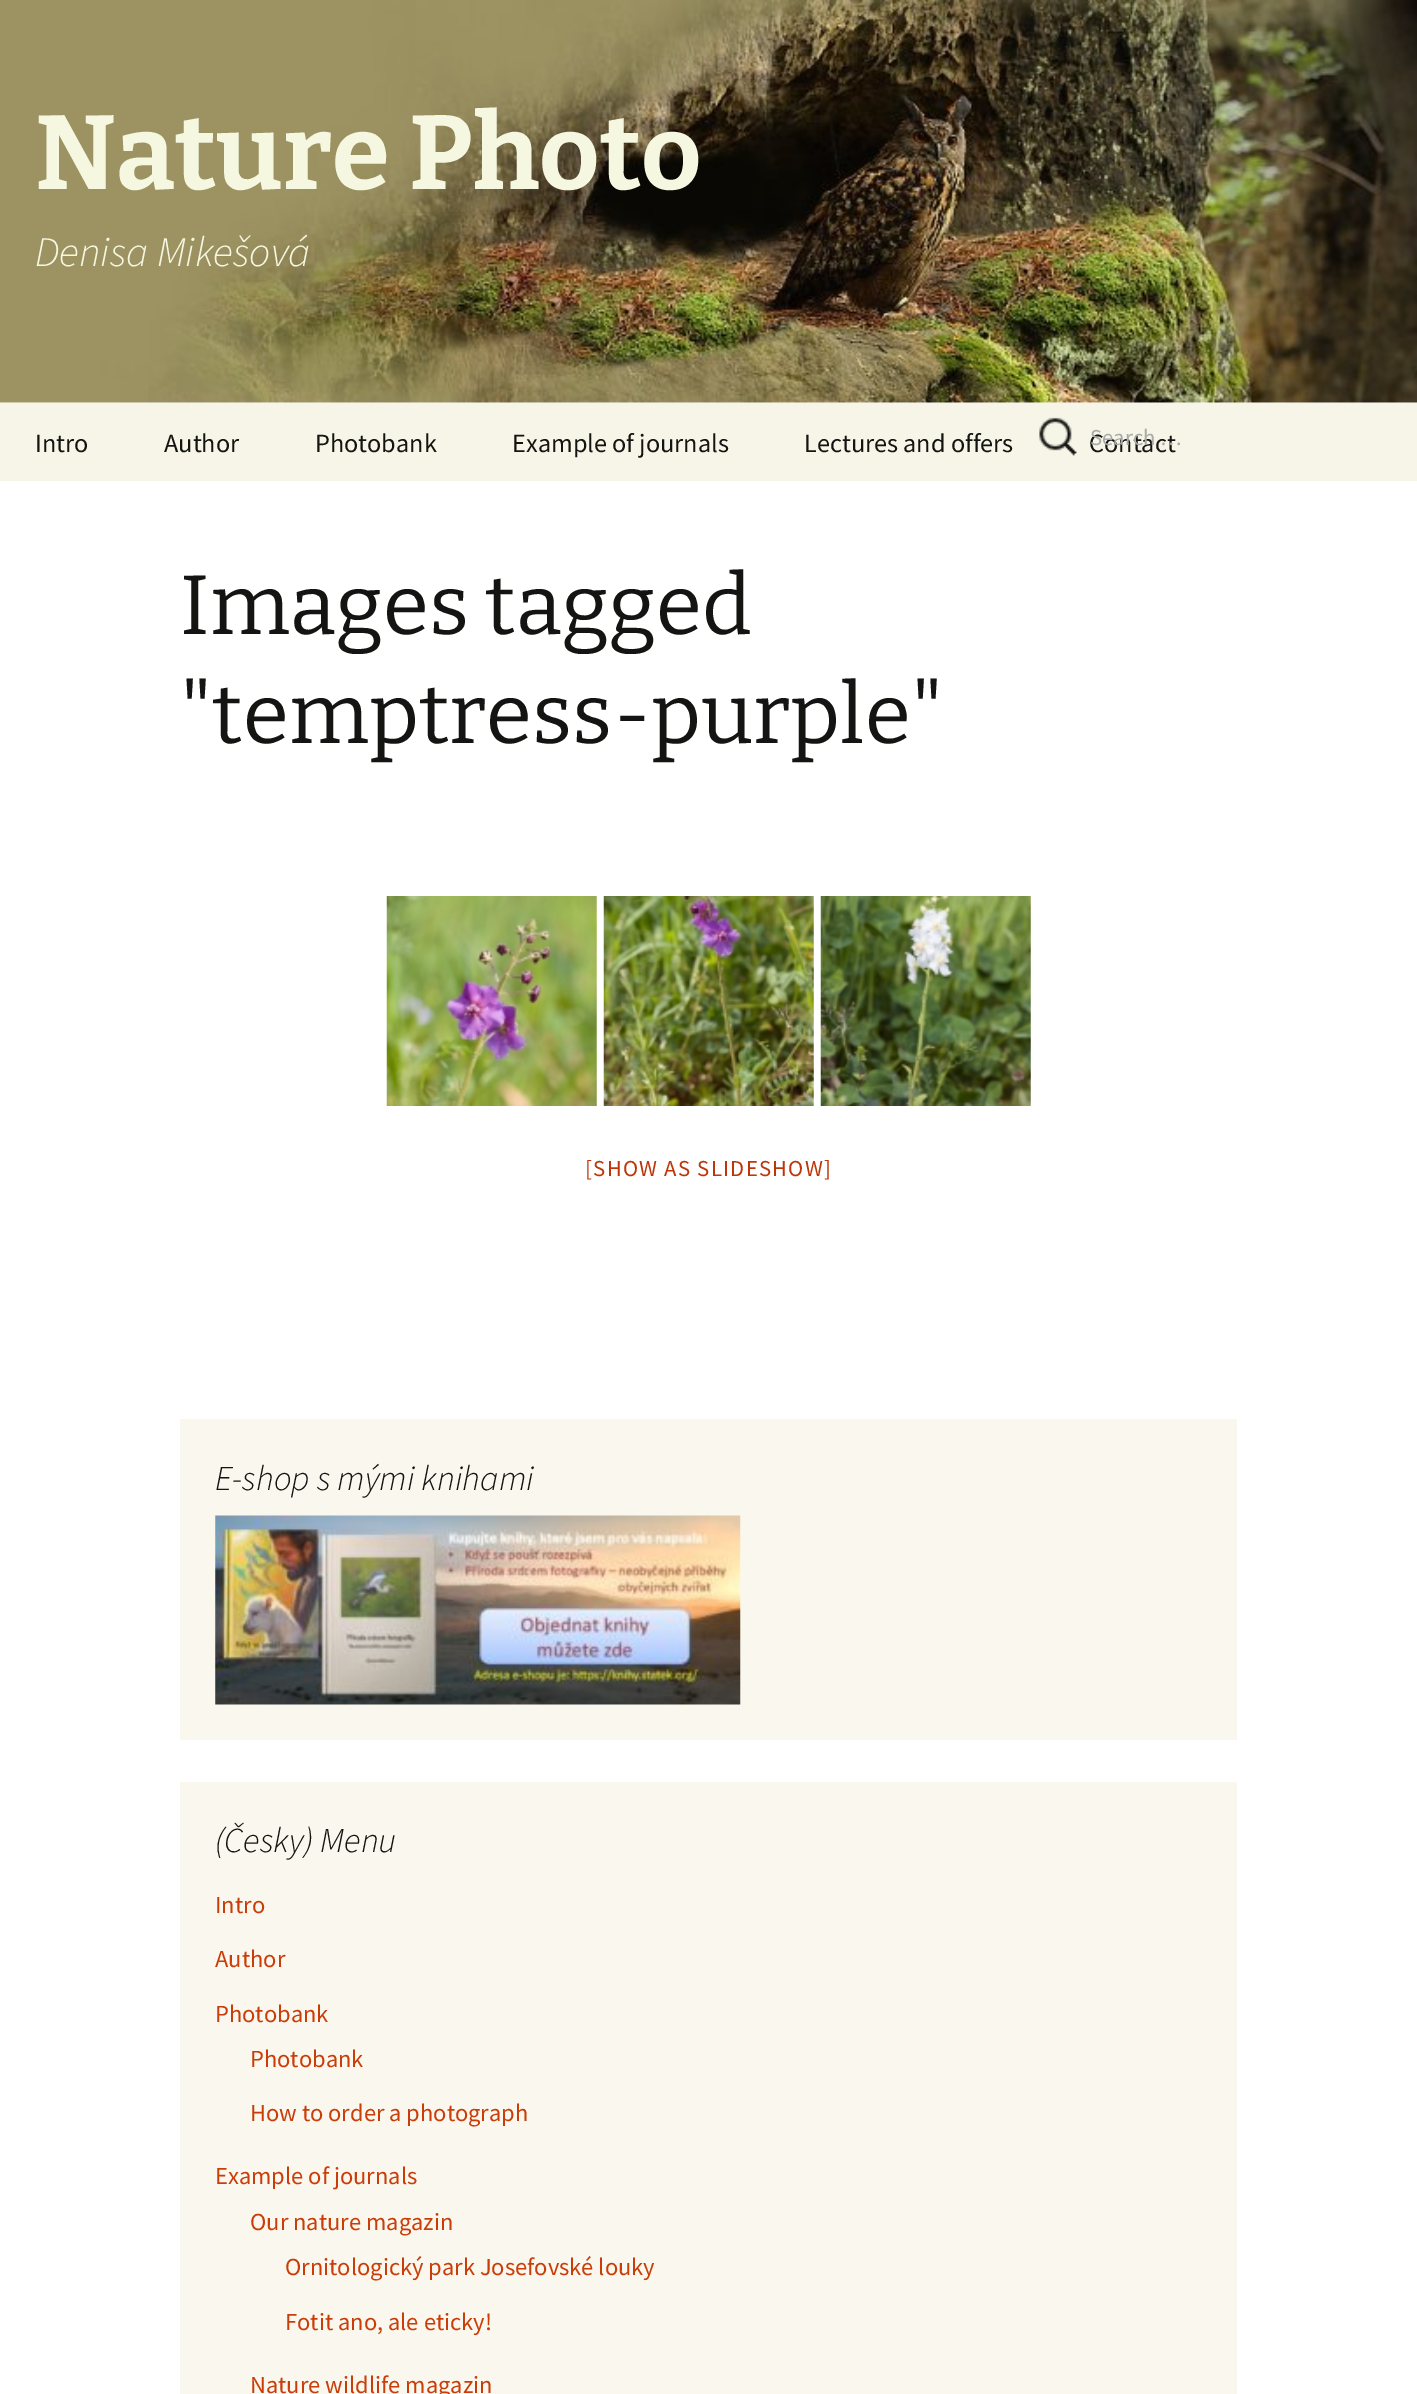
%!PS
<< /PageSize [1417 2394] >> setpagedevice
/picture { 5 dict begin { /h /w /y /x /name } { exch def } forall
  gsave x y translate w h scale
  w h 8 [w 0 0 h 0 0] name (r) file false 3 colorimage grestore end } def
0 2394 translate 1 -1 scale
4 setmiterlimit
1 setgray
0 0 1417 2394 rectfill
(img1.rgb) 0 0 1417 403 picture
/Bitter-Bold [105 0 0 -105 0 0] selectfont
0.961 0.969 0.882 setrgbcolor
35 189 moveto (Nature Photo) show
/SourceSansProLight-LightItalic [42 0 0 -42 0 0] selectfont
35 266 moveto (Denisa Mikešová) show
0.969 0.961 0.906 setrgbcolor
0 403 1417 78 rectfill
(img2.rgb) 1039 417 38 39 picture
/SourceSansPro-Regular [26.25 0 0 -26.25 0 0] selectfont
0.078 0.078 0.071 setrgbcolor
1089 452 moveto (Contact) show
/SourceSansPro-Regular [22.75 0 0 -22.75 0 0] selectfont
0.667 setgray
1090 445 moveto (Search …) show
/SourceSansPro-Regular [26.25 0 0 -26.25 0 0] selectfont
0.078 0.078 0.071 setrgbcolor
35 452 moveto (Intro) show
164 452 moveto (Author) show
315 452 moveto (Photobank) show
512 452 moveto (Example of journals) show
804 452 moveto (Lectures and offers) show
/Bitter-Regular [84 0 0 -84 0 0] selectfont
180 634 moveto (Images tagged) show
180 743 moveto ("temptress-purple") show
(img3.rgb) 386 896 211 210 picture
(img4.rgb) 603 896 211 210 picture
(img5.rgb) 820 896 211 210 picture
/SourceSansPro-Regular [22.75 0 0 -22.75 0 0] selectfont
0.737 0.212 0.039 setrgbcolor
585 1176 moveto 1.3 0 ([SHOW AS SLIDESHOW]) ashow
0.98 0.973 0.933 setrgbcolor
180 1419 1057 321 rectfill
/SourceSansProLight-LightItalic [35 0 0 -35 0 0] selectfont
0.078 0.078 0.071 setrgbcolor
215 1490 moveto (E-shop s mými knihami) show
(img6.rgb) 215 1515 526 190 picture
0.98 0.973 0.933 setrgbcolor
180 1782 1057 612 rectfill
0.078 0.078 0.071 setrgbcolor
215 1852 moveto (\(Česky\) Menu) show
/SourceSansPro-Regular [24.5 0 0 -24.5 0 0] selectfont
0.792 0.235 0.031 setrgbcolor
215 1913 moveto (Intro) show
215 1967 moveto (Author) show
215 2022 moveto (Photobank) show
250 2067 moveto (Photobank) show
250 2121 moveto (How to order a photograph) show
215 2184 moveto (Example of journals) show
250 2230 moveto (Our nature magazin) show
285 2275 moveto (Ornitologický park Josefovské louky) show
285 2330 moveto (Fotit ano, ale eticky!) show
250 2393 moveto (Nature wildlife magazin) show
showpage
